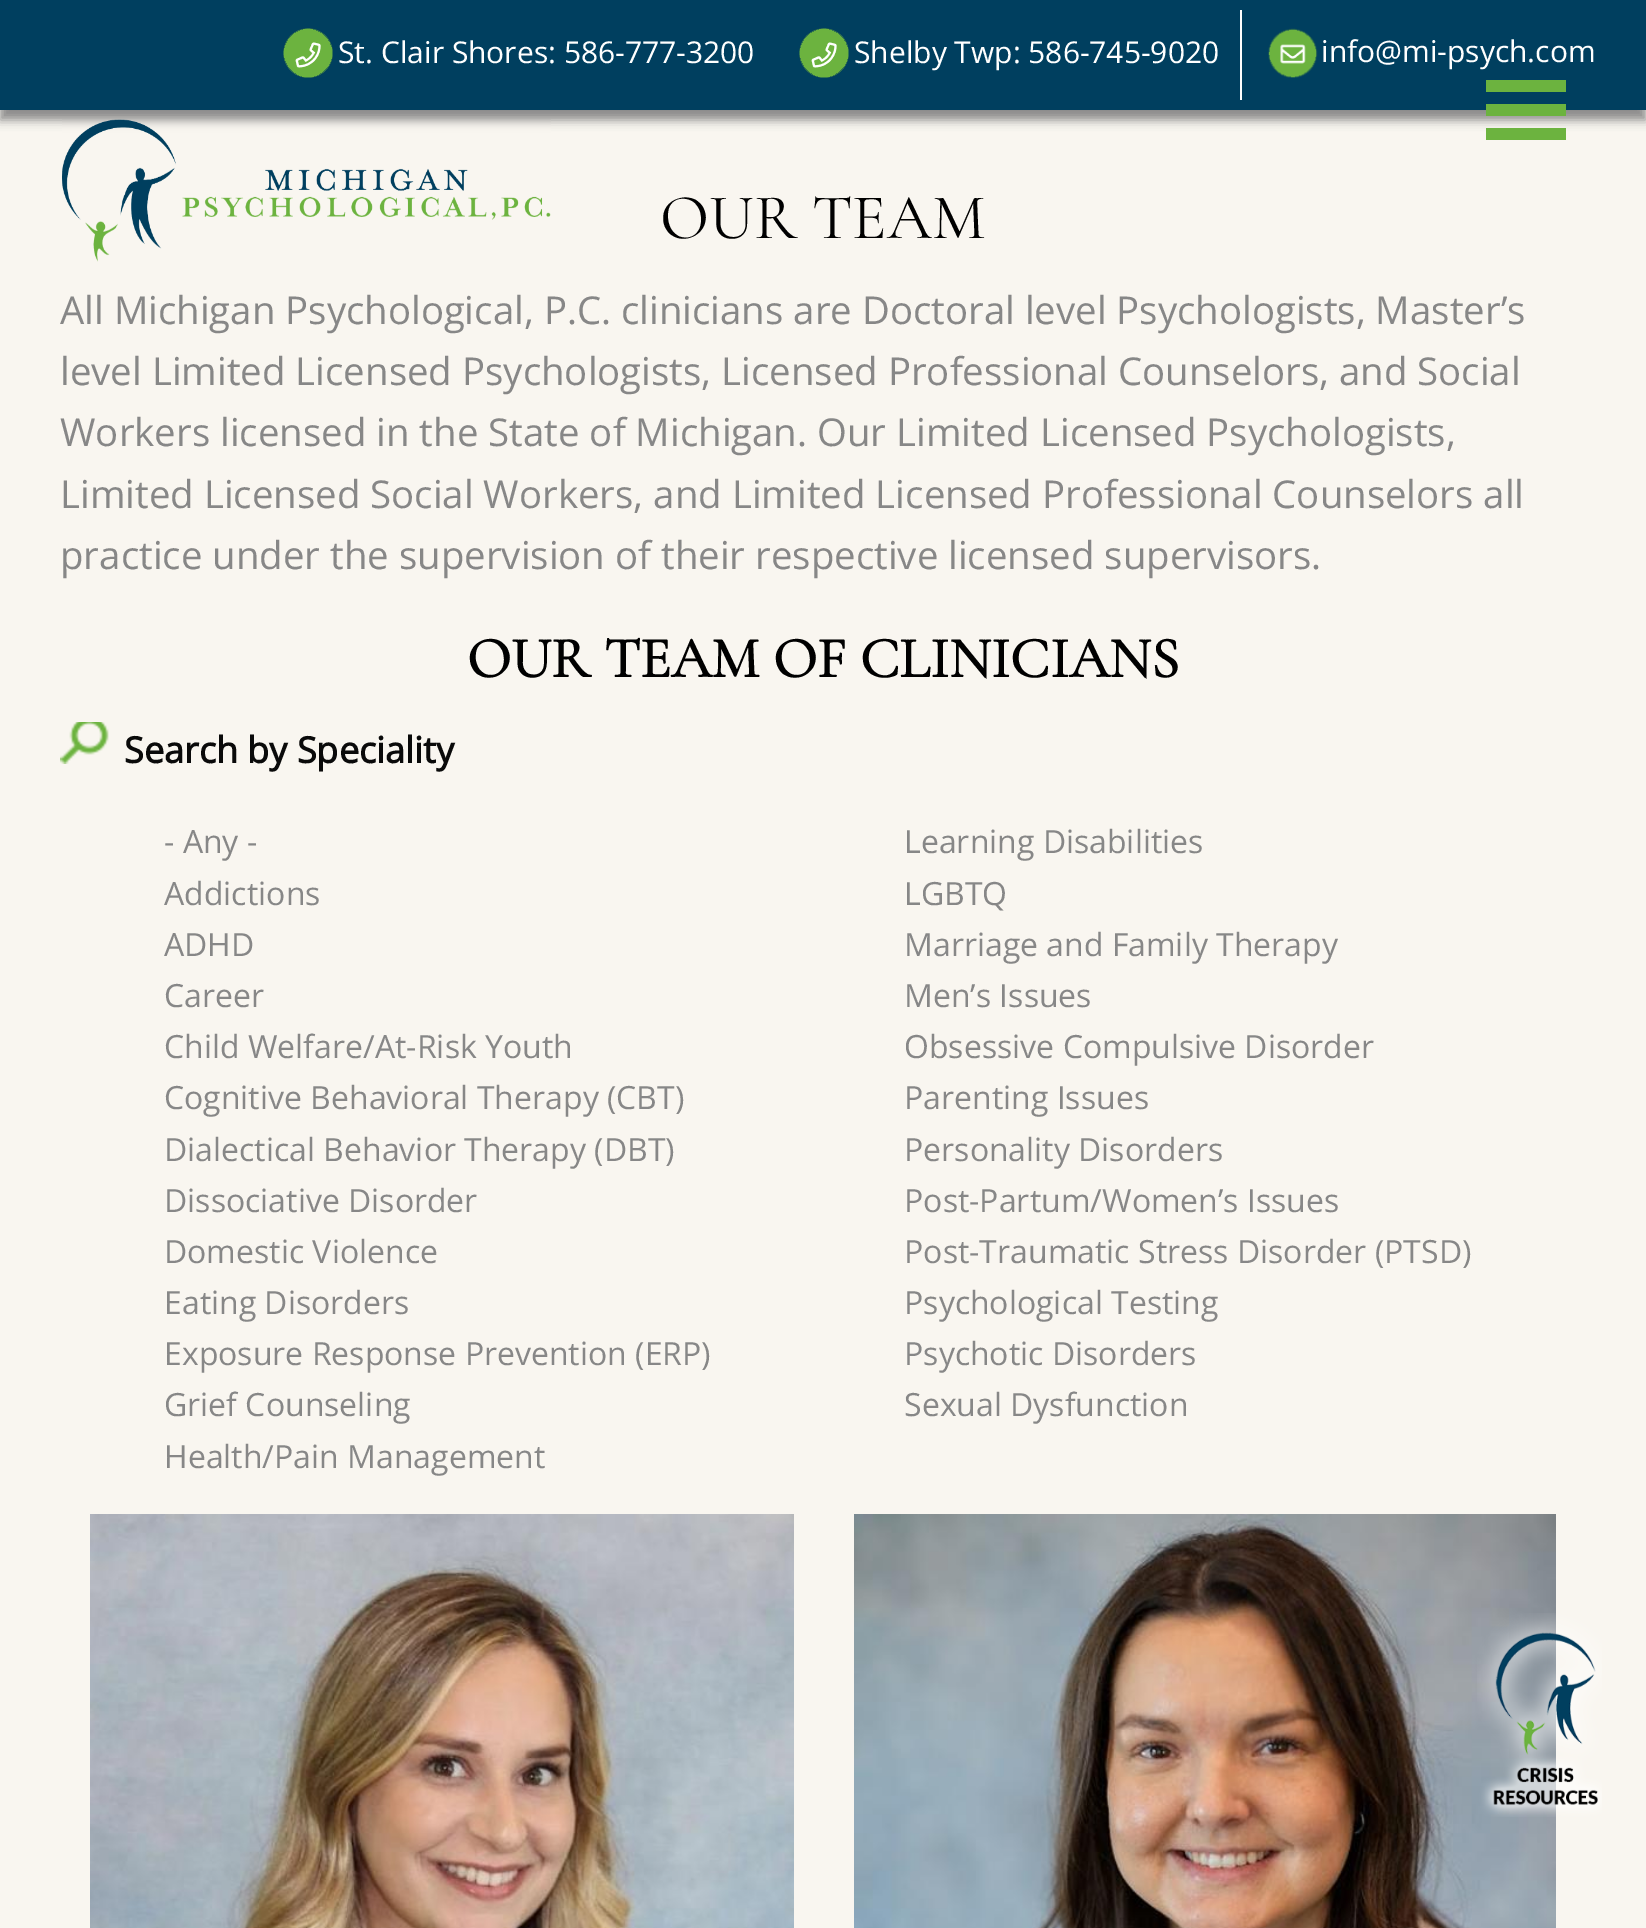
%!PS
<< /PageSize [1646 1928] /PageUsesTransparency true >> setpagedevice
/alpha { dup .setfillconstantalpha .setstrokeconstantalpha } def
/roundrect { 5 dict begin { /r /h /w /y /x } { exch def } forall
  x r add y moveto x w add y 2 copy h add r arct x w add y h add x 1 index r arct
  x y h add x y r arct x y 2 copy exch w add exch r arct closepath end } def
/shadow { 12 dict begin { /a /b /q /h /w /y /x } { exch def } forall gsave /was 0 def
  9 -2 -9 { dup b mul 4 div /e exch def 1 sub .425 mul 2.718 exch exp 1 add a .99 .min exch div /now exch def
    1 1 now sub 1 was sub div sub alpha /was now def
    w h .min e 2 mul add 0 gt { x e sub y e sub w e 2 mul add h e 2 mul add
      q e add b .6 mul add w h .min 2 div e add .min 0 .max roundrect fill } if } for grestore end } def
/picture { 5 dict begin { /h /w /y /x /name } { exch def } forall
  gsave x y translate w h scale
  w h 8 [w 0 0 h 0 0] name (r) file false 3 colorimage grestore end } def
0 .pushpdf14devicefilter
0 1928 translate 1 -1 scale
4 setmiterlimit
0.976 0.965 0.941 setrgbcolor
0 0 1646 1928 rectfill
0.533 setgray
0 10 1646 110 0 5 1 shadow
0 0.247 0.373 setrgbcolor
0 0 1646 110 rectfill
1 setgray
1240 10 2 90 rectfill
(img1.rgb) 283 28 50 50 picture
/OpenSans-Regular [30 0 0 -30 0 0] selectfont
338 63 moveto (St. Clair Shores: 586-777-3200) show
(img1.rgb) 799 28 50 50 picture
854 63 moveto (Shelby Twp: 586-745-9020) show
(img2.rgb) 1268 28 50 50 picture
1321 62 moveto (info@mi-psych.com) show
(img3.rgb) 62 119 489 143 picture
/CormorantGaramond-Regular [64 0 0 -64 0 0] selectfont
0 setgray
660 238 moveto (OUR TEAM) show
/OpenSans-Regular [38.4 0 0 -38.4 0 0] selectfont
0.529 setgray
60 324 moveto (All Michigan Psychological, P.C. clinicians are Doctoral level Psychologists, Master’s) show
60 385 moveto (level Limited Licensed Psychologists, Licensed Professional Counselors, and Social) show
60 446 moveto (Workers licensed in the State of Michigan. Our Limited Licensed Psychologists,) show
60 508 moveto (Limited Licensed Social Workers, and Limited Licensed Professional Counselors all) show
60 569 moveto (practice under the supervision of their respective licensed supervisors.) show
/CormorantGaramond-Bold [57.6 0 0 -57.6 0 0] selectfont
0 setgray
467 677 moveto (OUR TEAM OF CLINICIANS) show
(img4.rgb) 60 722 49 42 picture
/OpenSans-Bold [36 0 0 -36 0 0] selectfont
0.039 setgray
124 763 moveto (Search by Speciality) show
/OpenSans-Regular [32 0 0 -32 0 0] selectfont
0.529 setgray
164 853 moveto (- Any -) show
164 905 moveto (Addictions) show
164 956 moveto (ADHD) show
164 1007 moveto (Career) show
164 1058 moveto (Child Welfare/At-Risk Youth) show
164 1109 moveto (Cognitive Behavioral Therapy \(CBT\)) show
164 1161 moveto (Dialectical Behavior Therapy \(DBT\)) show
164 1212 moveto (Dissociative Disorder) show
164 1263 moveto (Domestic Violence) show
164 1314 moveto (Eating Disorders) show
164 1365 moveto (Exposure Response Prevention \(ERP\)) show
164 1416 moveto (Grief Counseling) show
164 1468 moveto (Health/Pain Management) show
904 853 moveto (Learning Disabilities) show
904 905 moveto (LGBTQ) show
904 956 moveto (Marriage and Family Therapy) show
904 1007 moveto (Men’s Issues) show
904 1058 moveto (Obsessive Compulsive Disorder) show
904 1109 moveto (Parenting Issues) show
904 1161 moveto (Personality Disorders) show
904 1212 moveto (Post-Partum/Women’s Issues) show
904 1263 moveto (Post-Traumatic Stress Disorder \(PTSD\)) show
904 1314 moveto (Psychological Testing) show
904 1365 moveto (Psychotic Disorders) show
904 1416 moveto (Sexual Dysfunction) show
(img5.rgb) 90 1514 704 414 picture
(img6.rgb) 854 1514 702 414 picture
(img7.rgb) 1477 1613 125 204 picture
0.424 0.702 0.247 setrgbcolor
1486 80 80 12 rectfill
1486 104 80 12 rectfill
1486 128 80 12 rectfill
.poppdf14devicefilter showpage
